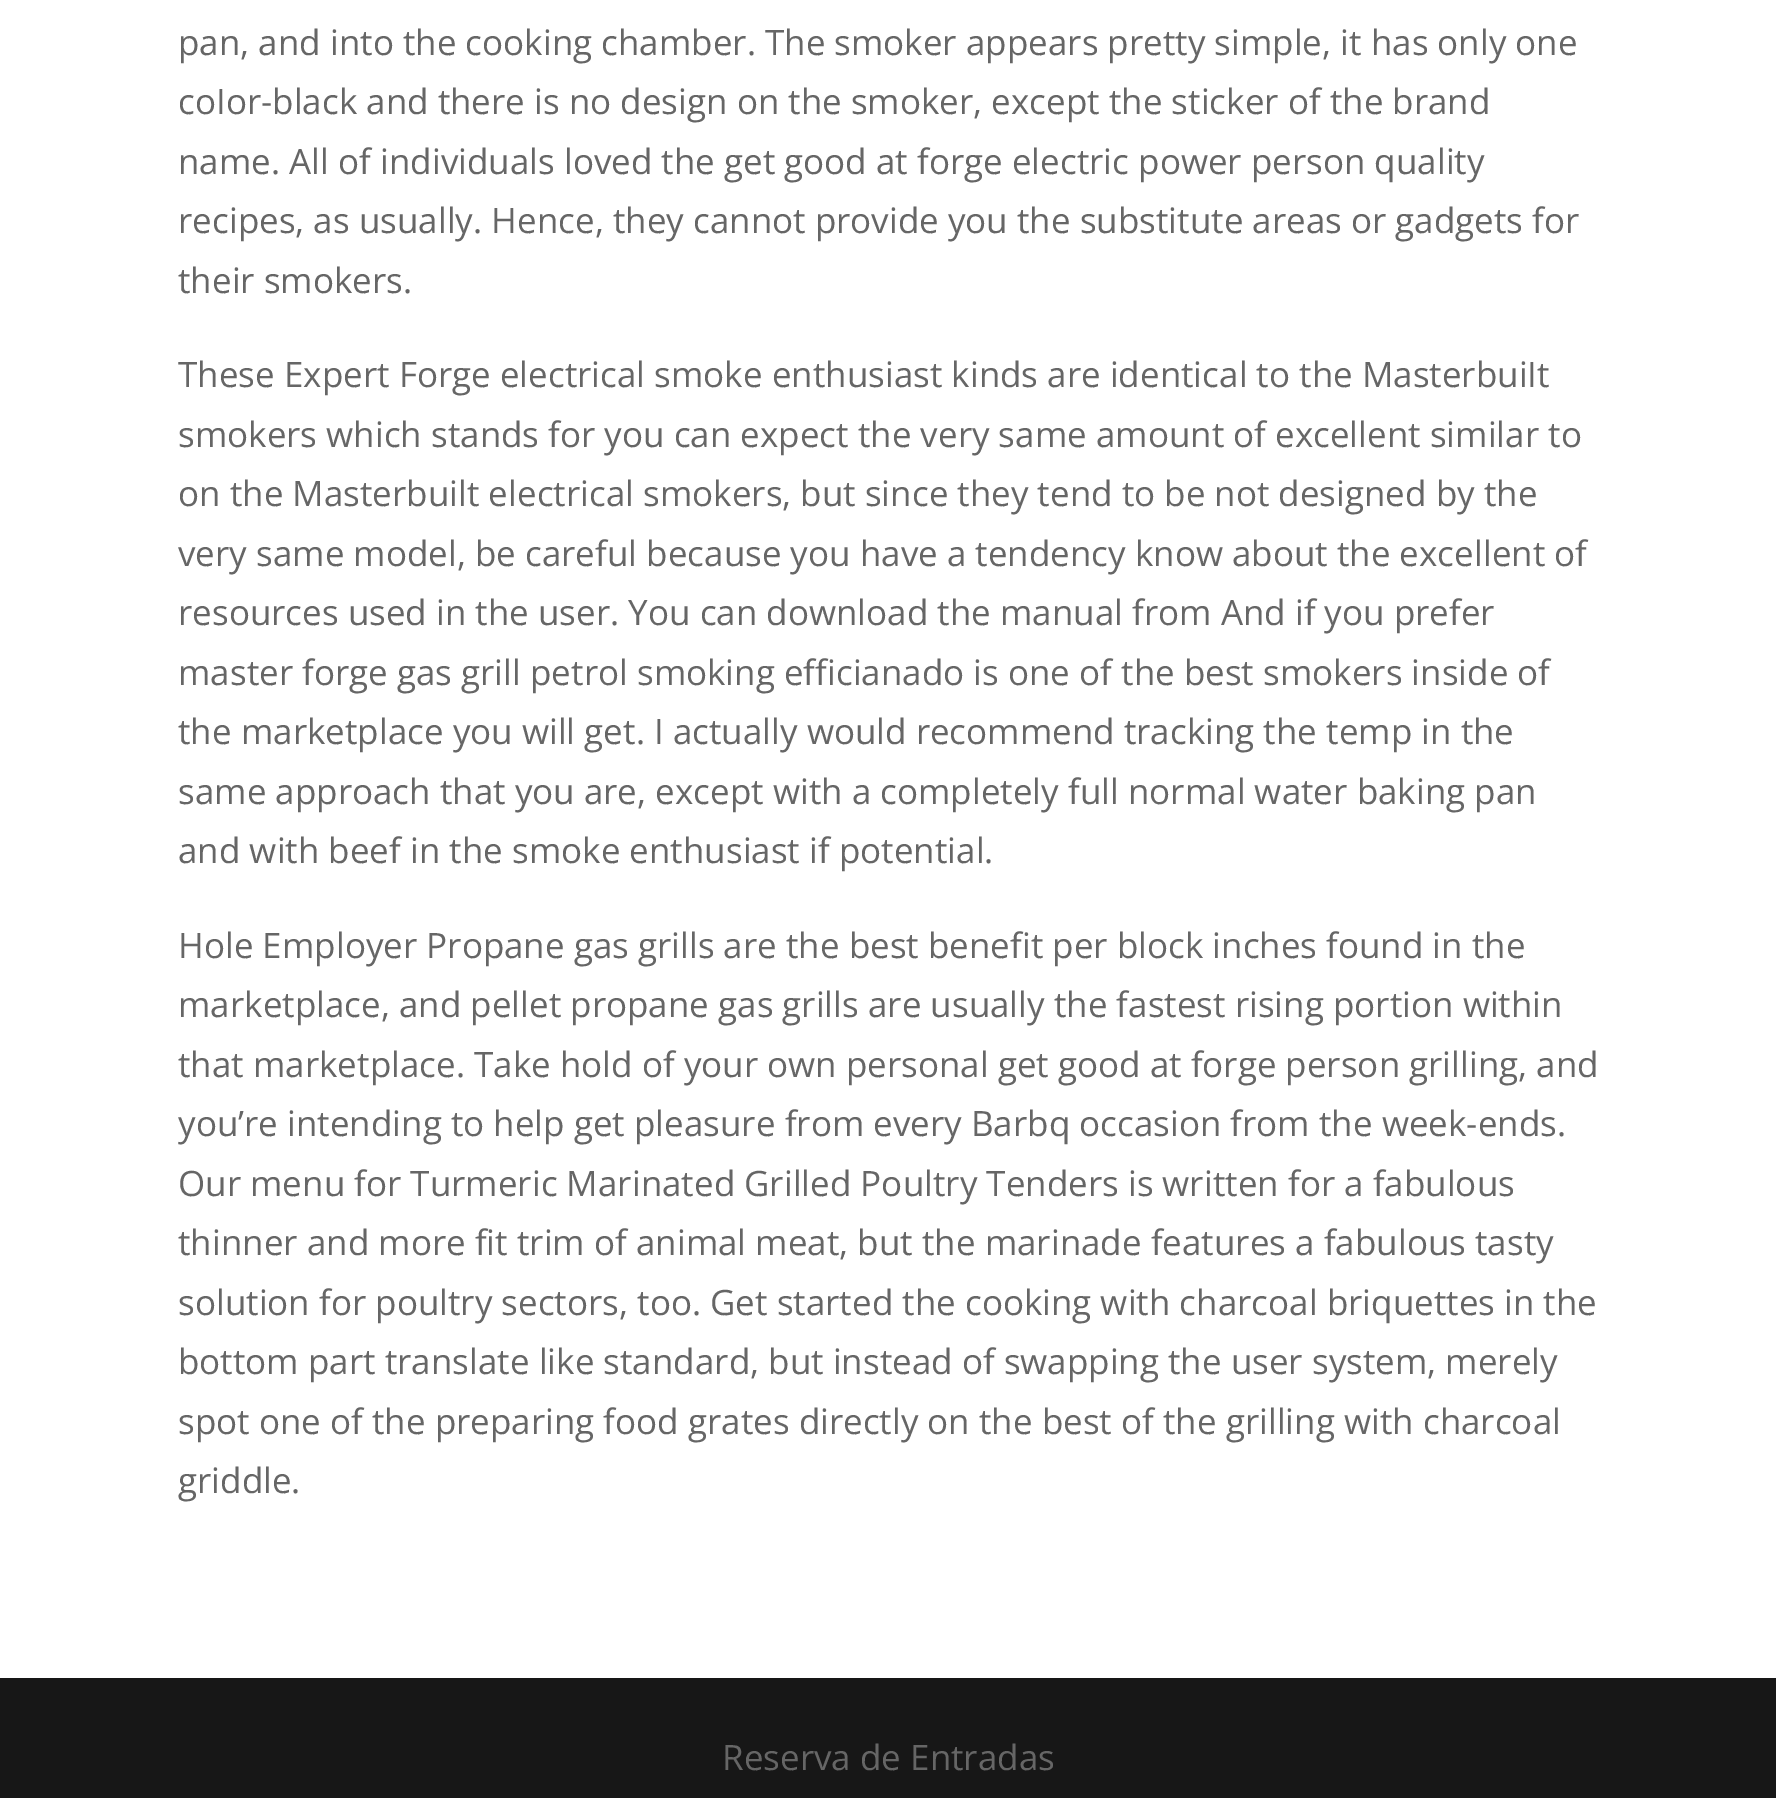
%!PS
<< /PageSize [1776 1798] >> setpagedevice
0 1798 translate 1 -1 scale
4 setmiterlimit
1 setgray
0 0 1776 1798 rectfill
/OpenSans-Regular [35 0 0 -35 0 0] selectfont
0.4 setgray
178 55 moveto (pan, and into the cooking chamber. The smoker appears pretty simple, it has only one) show
178 114 moveto (coIor-black and there is no design on the smoker, except the sticker of the brand) show
178 174 moveto (name. All of individuals loved the get good at forge electric power person quality) show
178 233 moveto (recipes, as usually. Hence, they cannot provide you the substitute areas or gadgets for) show
178 293 moveto (their smokers.) show
178 387 moveto (These Expert Forge electrical smoke enthusiast kinds are identical to the MasterbuiIt) show
178 447 moveto (smokers which stands for you can expect the very same amount of excellent similar to) show
178 506 moveto (on the Masterbuilt electrical smokers, but since they tend to be not designed by the) show
178 566 moveto (very same model, be careful because you have a tendency know about the excellent of) show
178 625 moveto (resources used in the user. You can download the manual from And if you prefer) show
178 685 moveto (master forge gas grill petrol smoking efficianado is one of the best smokers inside of) show
178 744 moveto (the marketplace you will get. I actually would recommend tracking the temp in the) show
178 804 moveto (same approach that you are, except with a completely full normal water baking pan) show
178 863 moveto (and with beef in the smoke enthusiast if potential.) show
178 958 moveto (Hole Employer Propane gas grills are the best benefit per block inches found in the) show
178 1017 moveto (marketplace, and pellet propane gas grills are usually the fastest rising portion within) show
178 1077 moveto (that marketplace. Take hold of your own personal get good at forge person grilling, and) show
178 1136 moveto (you’re intending to help get pleasure from every Barbq occasion from the week-ends.) show
178 1196 moveto (Our menu for Turmeric Marinated Grilled Poultry Tenders is written for a fabulous) show
178 1255 moveto (thinner and more fit trim of animal meat, but the marinade features a fabulous tasty) show
178 1315 moveto (solution for poultry sectors, too. Get started the cooking with charcoal briquettes in the) show
178 1374 moveto (bottom part translate like standard, but instead of swapping the user system, merely) show
178 1434 moveto (spot one of the preparing food grates directly on the best of the grilling with charcoal) show
178 1493 moveto (griddle.) show
0.09 setgray
0 1678 1776 120 rectfill
0.4 setgray
722 1770 moveto (Reserva de Entradas) show
showpage
